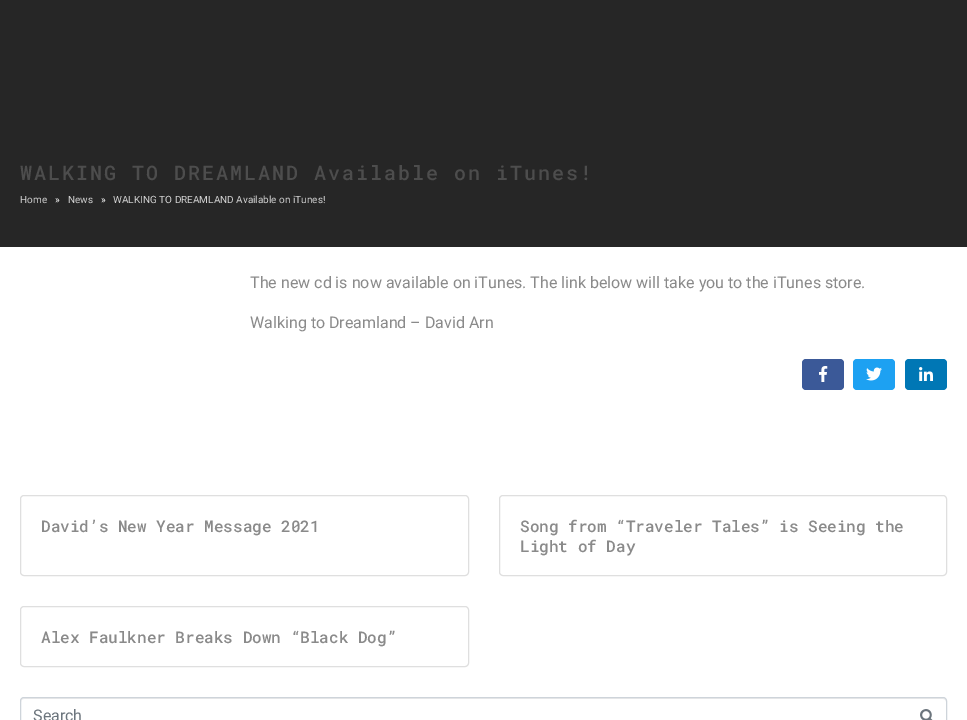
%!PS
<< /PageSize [967 720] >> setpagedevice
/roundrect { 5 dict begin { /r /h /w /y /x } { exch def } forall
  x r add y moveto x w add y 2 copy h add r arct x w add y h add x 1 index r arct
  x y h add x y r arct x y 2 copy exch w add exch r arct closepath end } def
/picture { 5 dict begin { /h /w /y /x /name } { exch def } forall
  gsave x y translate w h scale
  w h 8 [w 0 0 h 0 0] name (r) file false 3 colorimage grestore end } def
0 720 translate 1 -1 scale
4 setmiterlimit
1 setgray
0 0 967 720 rectfill
0.149 setgray
0 0 967 247 rectfill
/RobotoMono-Medium [20 0 0 -20 0 0] selectfont
0.302 setgray
20 180 moveto 2 0 (WALKING TO DREAMLAND Available on iTunes!) ashow
/Roboto-Regular [10 0 0 -10 0 0] selectfont
0.82 setgray
20 203 moveto (Home) show
1 setgray
55 203 moveto (») show
0.82 setgray
68 203 moveto (News) show
1 setgray
101 203 moveto (») show
0.82 setgray
113 203 moveto (WALKING TO DREAMLAND Available on iTunes!) show
/Roboto-Regular [16 0 0 -16 0 0] selectfont
0.541 setgray
250 288 moveto (The new cd is now available on iTunes. The link below will take you to the iTunes store.) show
250 328 moveto (Walking to Dreamland – David Arn) show
0.231 0.349 0.596 setrgbcolor
802 359 42 31 4 roundrect fill
(img1.rgb) 819 366 9 16 picture
0.114 0.631 0.949 setrgbcolor
853 359 42 31 4 roundrect fill
(img2.rgb) 866 367 16 14 picture
0 0.467 0.71 setrgbcolor
905 359 42 31 4 roundrect fill
(img3.rgb) 919 367 14 14 picture
0.875 setgray
20.5 495.5 448 80 3.5 roundrect stroke
/RobotoMono-Medium [16 0 0 -16 0 0] selectfont
0.541 setgray
41 532 moveto (David’s New Year Message 2021) show
0.875 setgray
499.5 495.5 447 80 3.5 roundrect stroke
0.541 setgray
520 532 moveto (Song from “Traveler Tales” is Seeing the) show
520 552 moveto (Light of Day) show
0.875 setgray
20.5 606.5 448 60 3.5 roundrect stroke
0.541 setgray
41 643 moveto (Alex Faulkner Breaks Down “Black Dog”) show
0.925 setgray
newpath 24 699 moveto 943 699 lineto 945 699 946 700 946 702 curveto 946 700 945 698 943 698 curveto 24 698 lineto 22 698 21 700 21 702 curveto 21 700 22 699 24 699 curveto closepath fill
0.808 0.831 0.855 setrgbcolor
20.5 697.5 926 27 3.5 roundrect stroke
/Roboto-Regular [16 0 0 -16 0 0] selectfont
0.424 0.459 0.49 setrgbcolor
33 721 moveto (Search) show
(img4.rgb) 920 709 13 11 picture
showpage
